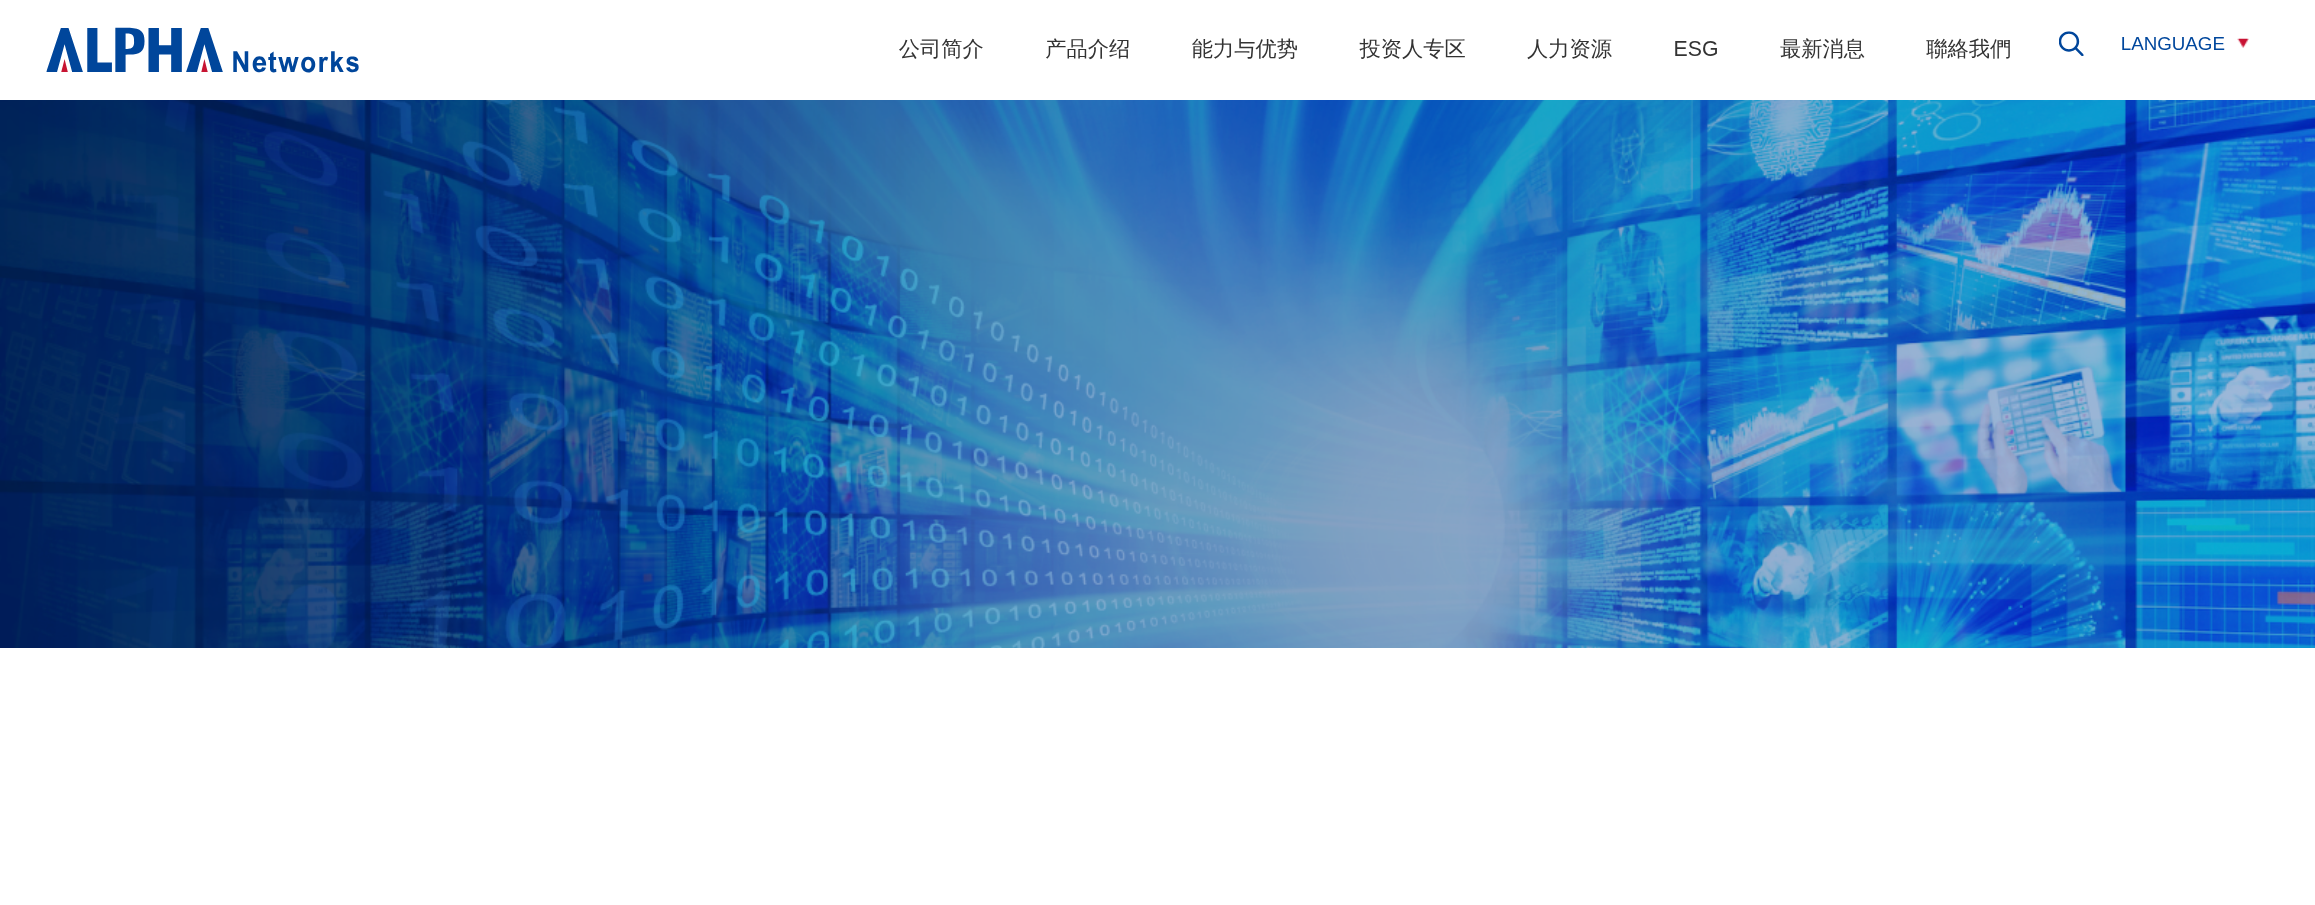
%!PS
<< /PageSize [2315 905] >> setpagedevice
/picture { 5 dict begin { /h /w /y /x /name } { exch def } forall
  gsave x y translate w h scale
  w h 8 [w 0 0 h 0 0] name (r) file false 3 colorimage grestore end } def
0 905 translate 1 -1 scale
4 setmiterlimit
1 setgray
0 0 2315 905 rectfill
(img1.rgb) 0 27 2315 621 picture
showpage
